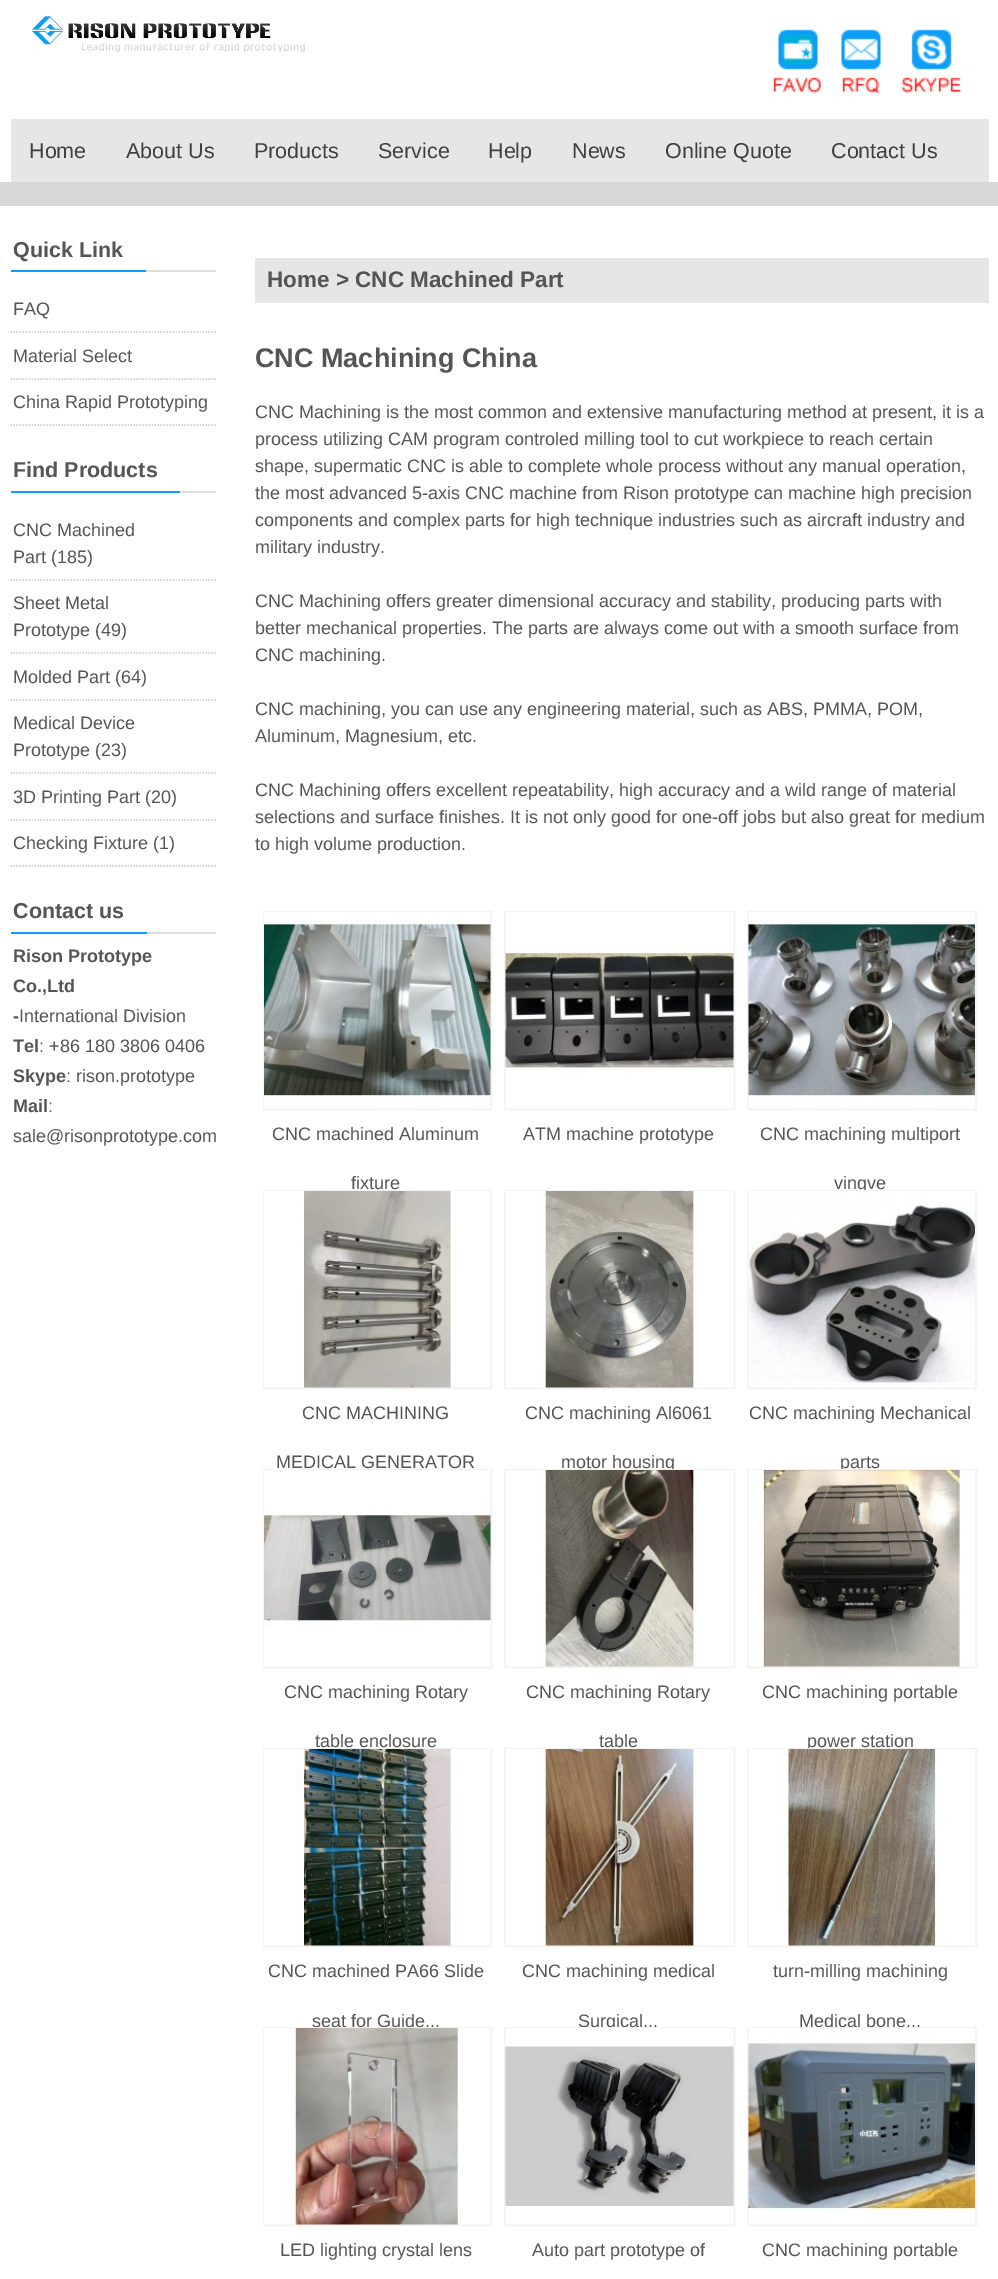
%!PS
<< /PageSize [998 2279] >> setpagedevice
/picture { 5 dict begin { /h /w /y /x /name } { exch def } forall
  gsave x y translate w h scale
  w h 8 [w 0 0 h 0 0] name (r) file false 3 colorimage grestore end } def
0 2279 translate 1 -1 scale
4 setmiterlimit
0.847 setgray
0 0 998 2279 rectfill
1 setgray
0 0 998 182 rectfill
(img1.rgb) 32 16 273 36 picture
(img2.rgb) 773 29 48 65 picture
(img3.rgb) 841 29 40 65 picture
(img4.rgb) 901 29 61 65 picture
0.902 setgray
11 119 978 63 rectfill
/LiberationSans-Regular [21.5 0 0 -21.5 0 0] selectfont
0.251 setgray
29 158 moveto (Home) show
126 158 moveto (About Us) show
254 158 moveto (Products) show
378 158 moveto (Service) show
488 158 moveto (Help) show
572 158 moveto (News) show
665 158 moveto (Online Quote) show
831 158 moveto (Contact Us) show
1 setgray
0 206 998 2073 rectfill
0.875 setgray
146 270 70 2 rectfill
0.055 0.62 0.969 setrgbcolor
11 270 135 2 rectfill
/LiberationSans-Bold [21.5 0 0 -21.5 0 0] selectfont
0.333 setgray
13 257 moveto (Quick Link) show
0.8 setgray
1.5 setlinewidth
[1.5 1.5] 0 setdash
newpath 10.5 332 moveto 216 332 lineto stroke
/LiberationSans-Regular [18 0 0 -18 0 0] selectfont
0.333 setgray
13 315 moveto (FAQ) show
0.8 setgray
newpath 10.5 379 moveto 216 379 lineto stroke
0.333 setgray
13 362 moveto (Material Select) show
0.8 setgray
newpath 10.5 425 moveto 216 425 lineto stroke
0.333 setgray
13 408 moveto (China Rapid Prototyping) show
0.875 setgray
180 491 36 2 rectfill
0.055 0.62 0.969 setrgbcolor
11 491 169 2 rectfill
/LiberationSans-Bold [21.5 0 0 -21.5 0 0] selectfont
0.333 setgray
13 477 moveto (Find Products) show
0.8 setgray
newpath 10.5 580 moveto 216 580 lineto stroke
/LiberationSans-Regular [18 0 0 -18 0 0] selectfont
0.333 setgray
13 536 moveto (CNC Machined) show
13 563 moveto (Part \(185\)) show
0.8 setgray
newpath 10.5 653 moveto 216 653 lineto stroke
0.333 setgray
13 609 moveto (Sheet Metal) show
13 636 moveto (Prototype \(49\)) show
0.8 setgray
newpath 10.5 700 moveto 216 700 lineto stroke
0.333 setgray
13 683 moveto (Molded Part \(64\)) show
0.8 setgray
newpath 10.5 773 moveto 216 773 lineto stroke
0.333 setgray
13 729 moveto (Medical Device) show
13 756 moveto (Prototype \(23\)) show
0.8 setgray
newpath 10.5 820 moveto 216 820 lineto stroke
0.333 setgray
13 803 moveto (3D Printing Part \(20\)) show
0.8 setgray
newpath 10.5 866 moveto 216 866 lineto stroke
0.333 setgray
13 849 moveto (Checking Fixture \(1\)) show
0.875 setgray
147 932 69 2 rectfill
0.055 0.62 0.969 setrgbcolor
11 932 136 2 rectfill
/LiberationSans-Bold [21.5 0 0 -21.5 0 0] selectfont
0.333 setgray
13 918 moveto (Contact us) show
/LiberationSans-Bold [18 0 0 -18 0 0] selectfont
13 962 moveto (Rison Prototype) show
13 992 moveto (Co.,Ltd) show
13 1022 moveto (-) show
/LiberationSans-Regular [18 0 0 -18 0 0] selectfont
19 1022 moveto (International Division) show
/LiberationSans-Bold [18 0 0 -18 0 0] selectfont
13 1052 moveto (Tel) show
/LiberationSans-Regular [18 0 0 -18 0 0] selectfont
39 1052 moveto (: +86 180 3806 0406) show
/LiberationSans-Bold [18 0 0 -18 0 0] selectfont
13 1082 moveto (Skype) show
/LiberationSans-Regular [18 0 0 -18 0 0] selectfont
66 1082 moveto (: rison.prototype) show
/LiberationSans-Bold [18 0 0 -18 0 0] selectfont
13 1112 moveto (Mail) show
/LiberationSans-Regular [18 0 0 -18 0 0] selectfont
48 1112 moveto (:) show
13 1142 moveto (sale@risonprototype.com) show
0.902 setgray
255 258 734 45 rectfill
/LiberationSans-Bold [22.5 0 0 -22.5 0 0] selectfont
0.333 setgray
267 287 moveto (Home > CNC Machined Part) show
/LiberationSans-Bold [27 0 0 -27 0 0] selectfont
255 367 moveto (CNC Machining China) show
/LiberationSans-Regular [18 0 0 -18 0 0] selectfont
255 418 moveto (CNC Machining is the most common and extensive manufacturing method at present, it is a) show
255 445 moveto (process utilizing CAM program controled milling tool to cut workpiece to reach certain) show
255 472 moveto (shape, supermatic CNC is able to complete whole process without any manual operation,) show
255 499 moveto (the most advanced 5-axis CNC machine from Rison prototype can machine high precision) show
255 526 moveto (components and complex parts for high technique industries such as aircraft industry and) show
255 553 moveto (military industry.) show
255 607 moveto (CNC Machining offers greater dimensional accuracy and stability, producing parts with) show
255 634 moveto (better mechanical properties. The parts are always come out with a smooth surface from) show
255 661 moveto (CNC machining.) show
255 715 moveto (CNC machining, you can use any engineering material, such as ABS, PMMA, POM,) show
255 742 moveto (Aluminum, Magnesium, etc.) show
255 796 moveto (CNC Machining offers excellent repeatability, high accuracy and a wild range of material) show
255 823 moveto (selections and surface finishes. It is not only good for one-off jobs but also great for medium) show
255 850 moveto (to high volume production.) show
0.953 setgray
2 setlinewidth
[] 0 setdash
264 912 227 197 rectstroke
(img5.rgb) 264 912 227 197 picture
0.333 setgray
272 1140 moveto (CNC machined Aluminum) show
351 1189 moveto (fixture) show
0.953 setgray
505 912 229 197 rectstroke
(img6.rgb) 505 912 229 197 picture
0.333 setgray
523 1140 moveto (ATM machine prototype) show
0.953 setgray
748 912 228 197 rectstroke
(img7.rgb) 748 912 227 197 picture
0.333 setgray
760 1140 moveto (CNC machining multiport) show
834 1189 moveto (vingve) show
0.953 setgray
264 1191 227 197 rectstroke
(img8.rgb) 264 1191 227 197 picture
0.333 setgray
302 1419 moveto (CNC MACHINING) show
276 1468 moveto (MEDICAL GENERATOR) show
0.953 setgray
505 1191 229 197 rectstroke
(img9.rgb) 505 1191 229 197 picture
0.333 setgray
525 1419 moveto (CNC machining Al6061) show
561 1468 moveto (motor housing) show
0.953 setgray
748 1191 228 197 rectstroke
(img10.rgb) 748 1191 227 197 picture
0.333 setgray
749 1419 moveto (CNC machining Mechanical) show
840 1468 moveto (parts) show
0.953 setgray
264 1470 227 197 rectstroke
(img11.rgb) 264 1470 227 197 picture
0.333 setgray
284 1698 moveto (CNC machining Rotary) show
315 1747 moveto (table enclosure) show
0.953 setgray
505 1470 229 197 rectstroke
(img12.rgb) 505 1470 229 197 picture
0.333 setgray
526 1698 moveto (CNC machining Rotary) show
599 1747 moveto (table) show
0.953 setgray
748 1470 228 197 rectstroke
(img13.rgb) 748 1470 227 197 picture
0.333 setgray
762 1698 moveto (CNC machining portable) show
807 1747 moveto (power station) show
0.953 setgray
264 1749 227 197 rectstroke
(img14.rgb) 264 1749 227 197 picture
0.333 setgray
268 1977 moveto (CNC machined PA66 Slide) show
312 2027 moveto (seat for Guide...) show
0.953 setgray
505 1749 229 197 rectstroke
(img15.rgb) 505 1749 229 197 picture
0.333 setgray
522 1977 moveto (CNC machining medical) show
578 2027 moveto (Surgical...) show
0.953 setgray
748 1749 228 197 rectstroke
(img16.rgb) 748 1749 227 197 picture
0.333 setgray
773 1977 moveto (turn-milling machining) show
799 2027 moveto (Medical bone...) show
0.953 setgray
264 2028 227 197 rectstroke
(img17.rgb) 264 2028 227 197 picture
0.333 setgray
280 2256 moveto (LED lighting crystal lens) show
0.953 setgray
505 2028 229 197 rectstroke
(img18.rgb) 505 2028 229 197 picture
0.333 setgray
532 2256 moveto (Auto part prototype of) show
0.953 setgray
748 2028 228 197 rectstroke
(img19.rgb) 748 2028 227 197 picture
0.333 setgray
762 2256 moveto (CNC machining portable) show
showpage
